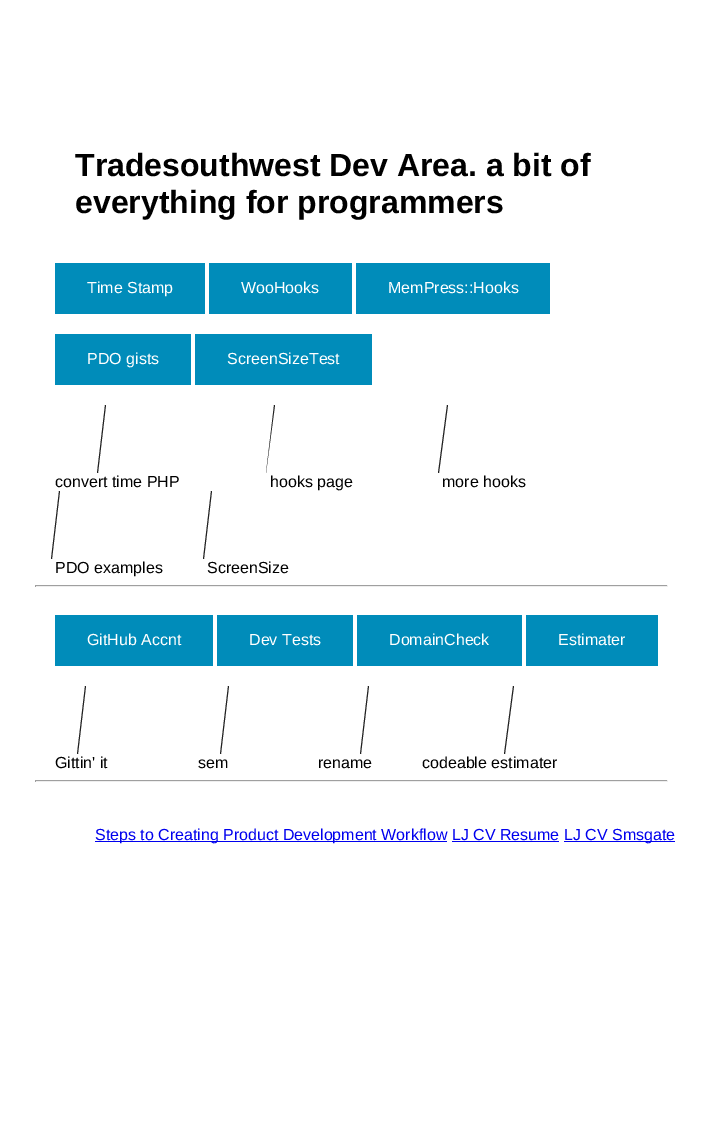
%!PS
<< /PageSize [703 1145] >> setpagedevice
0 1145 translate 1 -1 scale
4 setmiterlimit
1 setgray
0 0 703 1145 rectfill
/LiberationSans-Bold [32 0 0 -32 0 0] selectfont
0 setgray
75 176 moveto (Tradesouthwest Dev Area. a bit of) show
75 213 moveto (everything for programmers) show
0 0.549 0.729 setrgbcolor
55 263 150 51 rectfill
/LiberationSans-Regular [16 0 0 -16 0 0] selectfont
1 setgray
87 293 moveto (Time Stamp) show
0 0.549 0.729 setrgbcolor
209 263 143 51 rectfill
1 setgray
241 293 moveto (WooHooks) show
0 0.549 0.729 setrgbcolor
356 263 194 51 rectfill
1 setgray
388 293 moveto (MemPress::Hooks) show
0 0.549 0.729 setrgbcolor
55 334 136 51 rectfill
1 setgray
87 364 moveto (PDO gists) show
0 0.549 0.729 setrgbcolor
195 334 177 51 rectfill
1 setgray
227 364 moveto (ScreenSizeTest) show
0.133 setgray
newpath 105 405 moveto 106 405 lineto 98 473 lineto 97 473 lineto closepath fill
0 setgray
55 487 moveto (convert time PHP) show
0.133 setgray
newpath 274 405 moveto 275 405 lineto 266 473 lineto closepath fill
0 setgray
270 487 moveto (hooks page) show
0.133 setgray
newpath 447 405 moveto 448 405 lineto 439 473 lineto 438 473 lineto closepath fill
0 setgray
442 487 moveto (more hooks) show
0.133 setgray
newpath 59 491 moveto 60 491 lineto 52 559 lineto 51 559 lineto closepath fill
0 setgray
55 573 moveto (PDO examples) show
0.133 setgray
newpath 211 491 moveto 212 491 lineto 204 559 lineto 203 559 lineto closepath fill
0 setgray
207 573 moveto (ScreenSize) show
0.624 setgray
35 585 633 1 rectfill
0.933 setgray
667 585 1 2 rectfill
35 586 633 1 rectfill
0.624 setgray
35 585 1 2 rectfill
0 0.549 0.729 setrgbcolor
55 615 158 51 rectfill
1 setgray
87 645 moveto (GitHub Accnt) show
0 0.549 0.729 setrgbcolor
217 615 136 51 rectfill
1 setgray
249 645 moveto (Dev Tests) show
0 0.549 0.729 setrgbcolor
357 615 165 51 rectfill
1 setgray
389 645 moveto (DomainCheck) show
0 0.549 0.729 setrgbcolor
526 615 132 51 rectfill
1 setgray
558 645 moveto (Estimater) show
0.133 setgray
newpath 85 686 moveto 86 686 lineto 78 754 lineto 77 754 lineto closepath fill
0 setgray
55 768 moveto (Gittin' it) show
0.133 setgray
newpath 228 686 moveto 229 686 lineto 221 754 lineto 220 754 lineto closepath fill
0 setgray
198 768 moveto (sem) show
0.133 setgray
newpath 368 686 moveto 369 686 lineto 361 754 lineto 360 754 lineto closepath fill
0 setgray
318 768 moveto (rename) show
0.133 setgray
newpath 513 686 moveto 514 686 lineto 505 754 lineto 504 754 lineto closepath fill
0 setgray
422 768 moveto (codeable estimater) show
0.624 setgray
35 780 633 1 rectfill
0.933 setgray
667 780 1 2 rectfill
35 781 633 1 rectfill
0.624 setgray
35 780 1 2 rectfill
0 0 0.933 setrgbcolor
95 841 352 1 rectfill
95 840 moveto (Steps to Creating Product Development Workflow LJ CV Resume) show
564 841 111 1 rectfill
564 840 moveto (LJ CV Smsgate) show
452 841 107 1 rectfill
showpage
